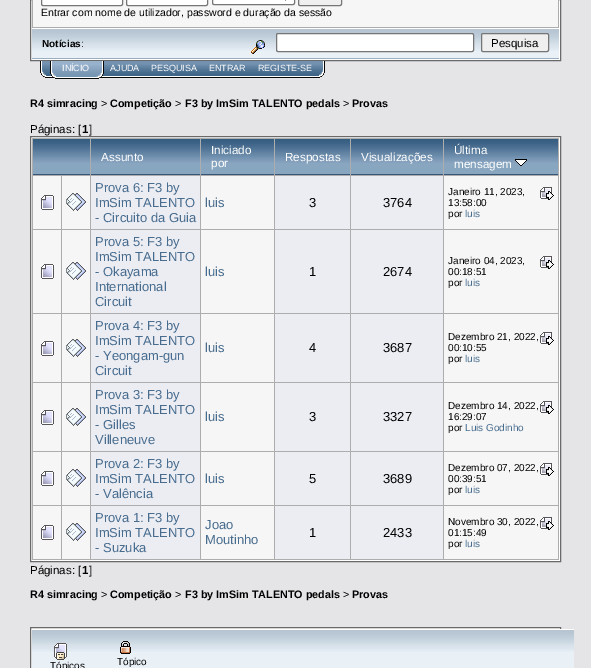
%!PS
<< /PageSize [591 668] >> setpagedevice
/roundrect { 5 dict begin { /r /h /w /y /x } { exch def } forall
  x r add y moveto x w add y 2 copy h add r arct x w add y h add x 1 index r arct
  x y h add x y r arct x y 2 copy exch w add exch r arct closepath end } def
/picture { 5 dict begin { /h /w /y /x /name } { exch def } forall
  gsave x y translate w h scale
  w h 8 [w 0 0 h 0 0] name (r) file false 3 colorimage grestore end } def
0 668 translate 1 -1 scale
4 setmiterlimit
0.898 0.898 0.91 setrgbcolor
0 0 591 668 rectfill
1 setgray
newpath 30.5 -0.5 moveto 560.5 -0.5 lineto 560.5 60.5 lineto 30.5 60.5 lineto closepath gsave fill grestore
0.412 setgray
stroke
0.678 setgray
32 0 527 28 rectfill
0.965 setgray
33 0 525 27 rectfill
1 setgray
41.5 -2.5 81 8 1.5 roundrect gsave fill grestore
0.463 setgray
stroke
1 setgray
126.5 -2.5 81 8 1.5 roundrect gsave fill grestore
0.463 setgray
stroke
1 setgray
212.5 -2.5 82 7 1.5 roundrect gsave fill grestore
0.463 setgray
stroke
0 setgray
2 setlinewidth
newpath 281.5 -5 moveto 285.5 -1 lineto 289.5 -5 lineto stroke
0.937 setgray
298.5 -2.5 43 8 1.5 roundrect gsave fill grestore
0.463 setgray
1 setlinewidth
stroke
/LiberationSans-Regular [10.5 0 0 -10.5 0 0] selectfont
0 setgray
41 16 moveto (Entrar com nome de utilizador, password e duração da sessão) show
0.914 0.941 0.965 setrgbcolor
32 51 527 7 rectfill
(img1.rgb) 32 29 202 22 picture
0.608 0.682 0.749 setrgbcolor
32 58 527 1 rectfill
/LiberationSans-Bold [10 0 0 -10 0 0] selectfont
0 setgray
42 47 moveto (Notícias) show
/LiberationSans-Regular [10 0 0 -10 0 0] selectfont
81 47 moveto (:) show
(img2.rgb) 234 29 325 22 picture
(img3.rgb) 251 40 14 14 picture
1 setgray
276.5 33.5 197 18 1.5 roundrect gsave fill grestore
0.463 setgray
stroke
0.937 setgray
481.5 33.5 67 18 1.5 roundrect gsave fill grestore
0.463 setgray
stroke
/LiberationSans-Regular [11.5 0 0 -11.5 0 0] selectfont
0 setgray
491 47 moveto (Pesquisa) show
(img4.rgb) 40 61 10 17 picture
(img5.rgb) 50 61 6 18 picture
(img6.rgb) 56 61 40 18 picture
/LiberationSans-Regular [9 0 0 -9 0 0] selectfont
1 setgray
62 71 moveto (INÍCIO) show
(img7.rgb) 96 61 8 18 picture
(img8.rgb) 104 61 41 17 picture
110 71 moveto (AJUDA) show
(img9.rgb) 145 61 58 17 picture
151 71 moveto (PESQUISA) show
(img10.rgb) 203 61 49 17 picture
209 71 moveto (ENTRAR) show
(img11.rgb) 252 61 67 17 picture
258 71 moveto (REGISTE-SE) show
(img12.rgb) 319 61 6 17 picture
/LiberationSans-Bold [10.8 0 0 -10.8 0 0] selectfont
0 setgray
30 107 moveto (R4 simracing) show
/LiberationSans-Regular [10.8 0 0 -10.8 0 0] selectfont
101 107 moveto (>) show
/LiberationSans-Bold [10.8 0 0 -10.8 0 0] selectfont
110 107 moveto (Competição) show
/LiberationSans-Regular [10.8 0 0 -10.8 0 0] selectfont
175 107 moveto (>) show
/LiberationSans-Bold [10.8 0 0 -10.8 0 0] selectfont
185 107 moveto (F3 by ImSim TALENTO pedals) show
/LiberationSans-Regular [10.8 0 0 -10.8 0 0] selectfont
343 107 moveto (>) show
/LiberationSans-Bold [10.8 0 0 -10.8 0 0] selectfont
352 107 moveto (Provas) show
/LiberationSans-Regular [11.5 0 0 -11.5 0 0] selectfont
30 133 moveto (Páginas: [) show
/LiberationSans-Bold [11.5 0 0 -11.5 0 0] selectfont
82 133 moveto (1) show
/LiberationSans-Regular [11.5 0 0 -11.5 0 0] selectfont
89 133 moveto (]) show
1 setgray
newpath 30.5 136.5 moveto 560.5 136.5 lineto 560.5 561.5 lineto 30.5 561.5 lineto closepath gsave fill grestore
0.412 setgray
stroke
0.678 setgray
32 138 527 422 rectfill
0.533 0.651 0.753 setrgbcolor
33 163 57 11 rectfill
(img13.rgb) 33 139 57 24 picture
0.216 0.333 0.463 setrgbcolor
33 174 57 1 rectfill
0.533 0.651 0.753 setrgbcolor
91 163 109 11 rectfill
(img14.rgb) 91 139 109 24 picture
0.216 0.333 0.463 setrgbcolor
91 174 109 1 rectfill
/LiberationSans-Regular [11.75 0 0 -11.75 0 0] selectfont
1 setgray
101 161 moveto (Assunto) show
0.533 0.651 0.753 setrgbcolor
201 163 73 11 rectfill
(img15.rgb) 201 139 73 24 picture
0.216 0.333 0.463 setrgbcolor
201 174 73 1 rectfill
1 setgray
211 154 moveto (Iniciado) show
211 167 moveto (por) show
0.533 0.651 0.753 setrgbcolor
275 163 75 11 rectfill
(img16.rgb) 275 139 75 24 picture
0.216 0.333 0.463 setrgbcolor
275 174 75 1 rectfill
1 setgray
285 161 moveto (Respostas) show
0.533 0.651 0.753 setrgbcolor
351 163 92 11 rectfill
(img17.rgb) 351 139 92 24 picture
0.216 0.333 0.463 setrgbcolor
351 174 92 1 rectfill
1 setgray
361 161 moveto (Visualizações) show
0.533 0.651 0.753 setrgbcolor
444 163 114 11 rectfill
(img18.rgb) 444 139 114 24 picture
0.216 0.333 0.463 setrgbcolor
444 174 114 1 rectfill
1 setgray
454 154 moveto (Última) show
454 168 moveto (mensagem) show
(img19.rgb) 515 159 12 7 picture
0.965 setgray
33 176 28 53 rectfill
(img20.rgb) 41 195 13 15 picture
62 176 28 53 rectfill
(img21.rgb) 66 193 20 18 picture
0.925 0.929 0.953 setrgbcolor
91 176 109 53 rectfill
/LiberationSans-Regular [13 0 0 -13 0 0] selectfont
0.278 0.424 0.557 setrgbcolor
95 192 moveto (Prova 6: F3 by) show
95 207 moveto (ImSim TALENTO) show
95 222 moveto (- Circuito da Guia) show
0.965 setgray
201 176 73 53 rectfill
0.278 0.424 0.557 setrgbcolor
205 207 moveto (luis) show
0.925 0.929 0.953 setrgbcolor
275 176 75 53 rectfill
0 setgray
309 207 moveto (3) show
0.925 0.929 0.953 setrgbcolor
351 176 92 53 rectfill
0 setgray
383 207 moveto (3764) show
0.965 setgray
444 176 114 53 rectfill
/LiberationSans-Regular [10 0 0 -10 0 0] selectfont
0 setgray
448 195 moveto (Janeiro 11, 2023,) show
(img22.rgb) 540 187 14 13 picture
448 206 moveto (13:58:00) show
448 217 moveto (por) show
0.278 0.424 0.557 setrgbcolor
465 217 moveto (luis) show
0.965 setgray
33 230 28 83 rectfill
(img20.rgb) 41 264 13 15 picture
62 230 28 83 rectfill
(img21.rgb) 66 262 20 18 picture
0.925 0.929 0.953 setrgbcolor
91 230 109 83 rectfill
/LiberationSans-Regular [13 0 0 -13 0 0] selectfont
0.278 0.424 0.557 setrgbcolor
95 246 moveto (Prova 5: F3 by) show
95 261 moveto (ImSim TALENTO) show
95 276 moveto (- Okayama) show
95 291 moveto (International) show
95 306 moveto (Circuit) show
0.965 setgray
201 230 73 83 rectfill
0.278 0.424 0.557 setrgbcolor
205 276 moveto (luis) show
0.925 0.929 0.953 setrgbcolor
275 230 75 83 rectfill
0 setgray
309 276 moveto (1) show
0.925 0.929 0.953 setrgbcolor
351 230 92 83 rectfill
0 setgray
383 276 moveto (2674) show
0.965 setgray
444 230 114 83 rectfill
/LiberationSans-Regular [10 0 0 -10 0 0] selectfont
0 setgray
448 264 moveto (Janeiro 04, 2023,) show
(img22.rgb) 540 256 14 13 picture
448 275 moveto (00:18:51) show
448 286 moveto (por) show
0.278 0.424 0.557 setrgbcolor
465 286 moveto (luis) show
0.965 setgray
33 314 28 68 rectfill
(img20.rgb) 41 341 13 15 picture
62 314 28 68 rectfill
(img21.rgb) 66 339 20 18 picture
0.925 0.929 0.953 setrgbcolor
91 314 109 68 rectfill
/LiberationSans-Regular [13 0 0 -13 0 0] selectfont
0.278 0.424 0.557 setrgbcolor
95 330 moveto (Prova 4: F3 by) show
95 345 moveto (ImSim TALENTO) show
95 360 moveto (- Yeongam-gun) show
95 375 moveto (Circuit) show
0.965 setgray
201 314 73 68 rectfill
0.278 0.424 0.557 setrgbcolor
205 352 moveto (luis) show
0.925 0.929 0.953 setrgbcolor
275 314 75 68 rectfill
0 setgray
309 352 moveto (4) show
0.925 0.929 0.953 setrgbcolor
351 314 92 68 rectfill
0 setgray
383 352 moveto (3687) show
0.965 setgray
444 314 114 68 rectfill
/LiberationSans-Regular [10 0 0 -10 0 0] selectfont
0 setgray
448 340 moveto (Dezembro 21, 2022,) show
(img22.rgb) 540 332 14 13 picture
448 351 moveto (00:10:55) show
448 362 moveto (por) show
0.278 0.424 0.557 setrgbcolor
465 362 moveto (luis) show
0.965 setgray
33 383 28 68 rectfill
(img20.rgb) 41 410 13 15 picture
62 383 28 68 rectfill
(img21.rgb) 66 408 20 18 picture
0.925 0.929 0.953 setrgbcolor
91 383 109 68 rectfill
/LiberationSans-Regular [13 0 0 -13 0 0] selectfont
0.278 0.424 0.557 setrgbcolor
95 399 moveto (Prova 3: F3 by) show
95 414 moveto (ImSim TALENTO) show
95 429 moveto (- Gilles) show
95 444 moveto (Villeneuve) show
0.965 setgray
201 383 73 68 rectfill
0.278 0.424 0.557 setrgbcolor
205 421 moveto (luis) show
0.925 0.929 0.953 setrgbcolor
275 383 75 68 rectfill
0 setgray
309 421 moveto (3) show
0.925 0.929 0.953 setrgbcolor
351 383 92 68 rectfill
0 setgray
383 421 moveto (3327) show
0.965 setgray
444 383 114 68 rectfill
/LiberationSans-Regular [10 0 0 -10 0 0] selectfont
0 setgray
448 409 moveto (Dezembro 14, 2022,) show
(img22.rgb) 540 401 14 13 picture
448 420 moveto (16:29:07) show
448 431 moveto (por) show
0.278 0.424 0.557 setrgbcolor
465 431 moveto (Luis Godinho) show
0.965 setgray
33 452 28 53 rectfill
(img20.rgb) 41 471 13 15 picture
62 452 28 53 rectfill
(img21.rgb) 66 469 20 18 picture
0.925 0.929 0.953 setrgbcolor
91 452 109 53 rectfill
/LiberationSans-Regular [13 0 0 -13 0 0] selectfont
0.278 0.424 0.557 setrgbcolor
95 468 moveto (Prova 2: F3 by) show
95 483 moveto (ImSim TALENTO) show
95 498 moveto (- Valência) show
0.965 setgray
201 452 73 53 rectfill
0.278 0.424 0.557 setrgbcolor
205 483 moveto (luis) show
0.925 0.929 0.953 setrgbcolor
275 452 75 53 rectfill
0 setgray
309 483 moveto (5) show
0.925 0.929 0.953 setrgbcolor
351 452 92 53 rectfill
0 setgray
383 483 moveto (3689) show
0.965 setgray
444 452 114 53 rectfill
/LiberationSans-Regular [10 0 0 -10 0 0] selectfont
0 setgray
448 471 moveto (Dezembro 07, 2022,) show
(img22.rgb) 540 463 14 13 picture
448 482 moveto (00:39:51) show
448 493 moveto (por) show
0.278 0.424 0.557 setrgbcolor
465 493 moveto (luis) show
0.965 setgray
33 506 28 53 rectfill
(img20.rgb) 41 525 13 15 picture
62 506 28 53 rectfill
(img21.rgb) 66 523 20 18 picture
0.925 0.929 0.953 setrgbcolor
91 506 109 53 rectfill
/LiberationSans-Regular [13 0 0 -13 0 0] selectfont
0.278 0.424 0.557 setrgbcolor
95 522 moveto (Prova 1: F3 by) show
95 537 moveto (ImSim TALENTO) show
95 552 moveto (- Suzuka) show
0.965 setgray
201 506 73 53 rectfill
0.278 0.424 0.557 setrgbcolor
205 529 moveto (Joao) show
205 544 moveto (Moutinho) show
0.925 0.929 0.953 setrgbcolor
275 506 75 53 rectfill
0 setgray
309 537 moveto (1) show
0.925 0.929 0.953 setrgbcolor
351 506 92 53 rectfill
0 setgray
383 537 moveto (2433) show
0.965 setgray
444 506 114 53 rectfill
/LiberationSans-Regular [10 0 0 -10 0 0] selectfont
0 setgray
448 525 moveto (Novembro 30, 2022,) show
(img22.rgb) 540 517 14 13 picture
448 536 moveto (01:15:49) show
448 547 moveto (por) show
0.278 0.424 0.557 setrgbcolor
465 547 moveto (luis) show
/LiberationSans-Regular [11.5 0 0 -11.5 0 0] selectfont
0 setgray
30 574 moveto (Páginas: [) show
/LiberationSans-Bold [11.5 0 0 -11.5 0 0] selectfont
82 574 moveto (1) show
/LiberationSans-Regular [11.5 0 0 -11.5 0 0] selectfont
89 574 moveto (]) show
/LiberationSans-Bold [10.8 0 0 -10.8 0 0] selectfont
30 598 moveto (R4 simracing) show
/LiberationSans-Regular [10.8 0 0 -10.8 0 0] selectfont
101 598 moveto (>) show
/LiberationSans-Bold [10.8 0 0 -10.8 0 0] selectfont
110 598 moveto (Competição) show
/LiberationSans-Regular [10.8 0 0 -10.8 0 0] selectfont
175 598 moveto (>) show
/LiberationSans-Bold [10.8 0 0 -10.8 0 0] selectfont
185 598 moveto (F3 by ImSim TALENTO pedals) show
/LiberationSans-Regular [10.8 0 0 -10.8 0 0] selectfont
343 598 moveto (>) show
/LiberationSans-Bold [10.8 0 0 -10.8 0 0] selectfont
352 598 moveto (Provas) show
1 setgray
newpath 30.5 627.5 moveto 560.5 627.5 lineto 560.5 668.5 lineto 30.5 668.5 lineto closepath gsave fill grestore
0.412 setgray
stroke
0.914 0.941 0.965 setrgbcolor
32 652 542 16 rectfill
(img23.rgb) 32 630 542 22 picture
1 setgray
560 629 14 1 rectfill
(img24.rgb) 54 643 13 17 picture
/LiberationSans-Regular [10 0 0 -10 0 0] selectfont
0 setgray
50 669 moveto (Tópicos) show
(img25.rgb) 120 641 11 13 picture
117 665 moveto (Tópico) show
showpage
